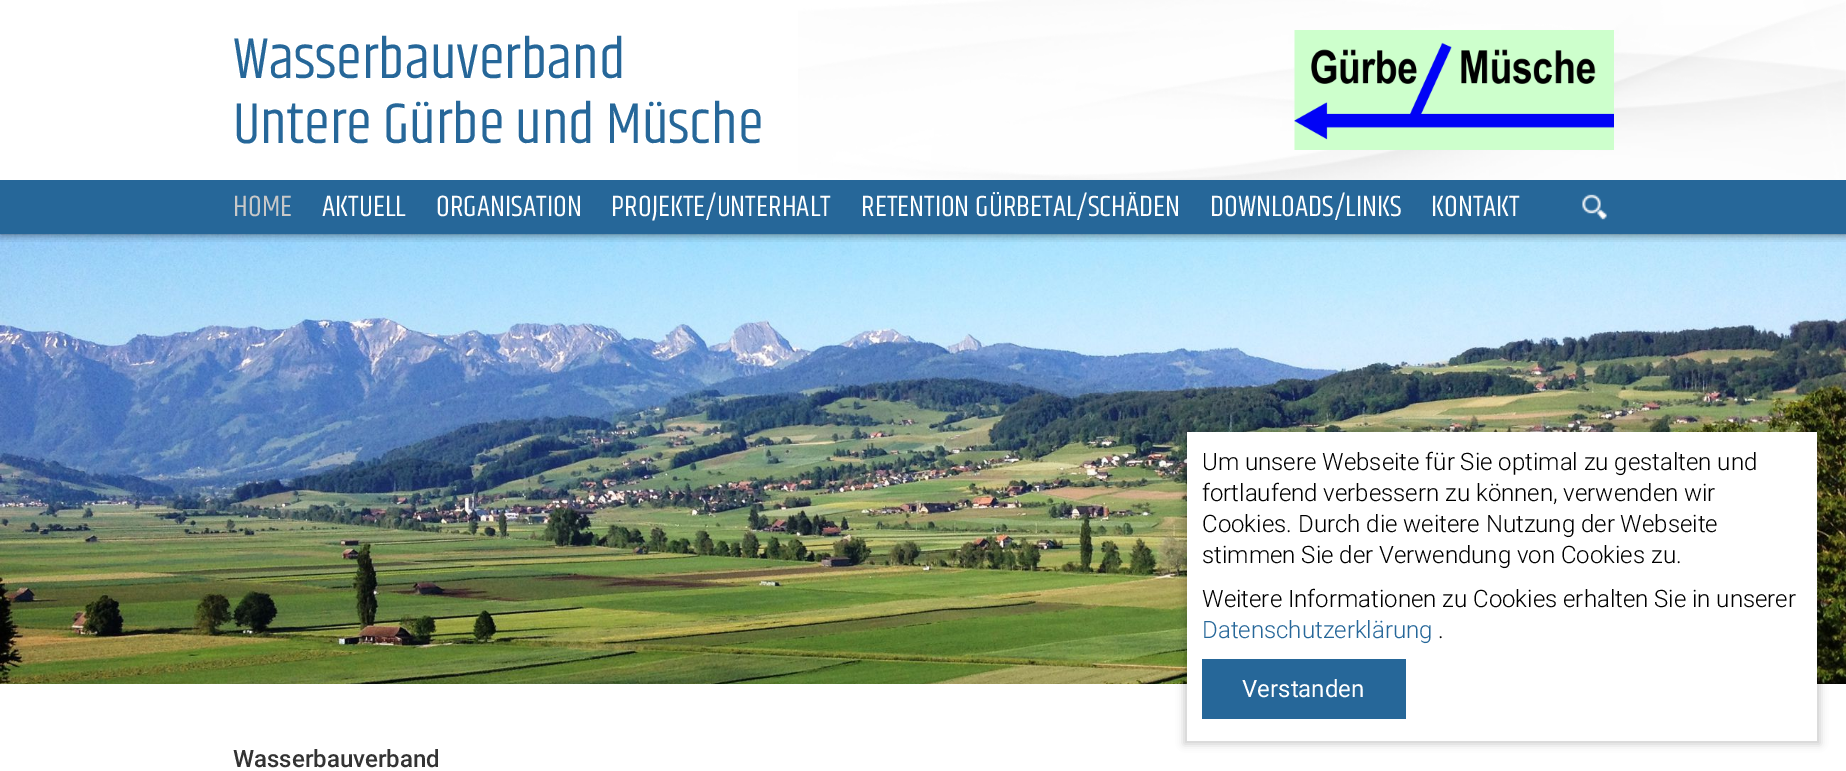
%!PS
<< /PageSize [1846 771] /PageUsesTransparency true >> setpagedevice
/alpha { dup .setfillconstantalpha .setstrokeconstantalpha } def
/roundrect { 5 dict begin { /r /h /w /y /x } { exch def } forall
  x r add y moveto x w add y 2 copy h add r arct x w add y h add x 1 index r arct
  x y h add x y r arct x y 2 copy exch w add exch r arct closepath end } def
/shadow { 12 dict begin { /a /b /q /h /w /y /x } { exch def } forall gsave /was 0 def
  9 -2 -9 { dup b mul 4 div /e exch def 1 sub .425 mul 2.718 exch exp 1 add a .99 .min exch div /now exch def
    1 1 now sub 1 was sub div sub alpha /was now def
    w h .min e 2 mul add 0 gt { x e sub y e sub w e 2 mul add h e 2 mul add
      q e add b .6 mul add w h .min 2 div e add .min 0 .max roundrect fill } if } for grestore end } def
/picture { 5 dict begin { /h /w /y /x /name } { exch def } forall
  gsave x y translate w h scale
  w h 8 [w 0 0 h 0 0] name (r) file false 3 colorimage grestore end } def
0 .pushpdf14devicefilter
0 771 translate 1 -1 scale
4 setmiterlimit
1 setgray
0 0 1846 771 rectfill
(img4.rgb) 0 234 1846 450 picture
gsave
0 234 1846 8 rectclip
0 setgray
0 0 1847 234 0 4.5 0.6 shadow
grestore
(img1.rgb) 798 0 1048 180 picture
/Khand-Regular [58.75 0 0 -58.75 0 0] selectfont
0.149 0.404 0.6 setrgbcolor
233 78 moveto (Wasserbauverband) show
233 143 moveto (Untere Gürbe und Müsche) show
(img2.rgb) 1294 30 320 120 picture
0 180 1846 54 rectfill
/Khand-Regular [30 0 0 -30 0 0] selectfont
0.784 setgray
233 216 moveto (HOME) show
1 setgray
322 216 moveto (AKTUELL) show
436 216 moveto (ORGANISATION) show
611 216 moveto (PROJEKTE/UNTERHALT) show
861 216 moveto (RETENTION GÜRBETAL/SCHÄDEN) show
1210 216 moveto (DOWNLOADS/LINKS) show
1431 216 moveto (KONTAKT) show
(img3.rgb) 1582 194 25 26 picture
0 setgray
1184 429 636 315 0 4 0.2 shadow
1 setgray
1187 432 630 309 rectfill
/Roboto-Light [24 0 0 -24 0 0] selectfont
0 setgray
1202 470 moveto (Um unsere Webseite für Sie optimal zu gestalten und) show
1202 501 moveto (fortlaufend verbessern zu können, verwenden wir) show
1202 532 moveto (Cookies. Durch die weitere Nutzung der Webseite) show
1202 563 moveto (stimmen Sie der Verwendung von Cookies zu.) show
1202 607 moveto (Weitere Informationen zu Cookies erhalten Sie in unserer) show
0.149 0.404 0.6 setrgbcolor
1202 638 moveto (Datenschutzerklärung) show
0 setgray
1438 638 moveto (.) show
0.149 0.404 0.6 setrgbcolor
1202 659 204 60 rectfill
/Roboto-Regular [24 0 0 -24 0 0] selectfont
1 setgray
1242 697 moveto (Verstanden) show
/Roboto-Medium [24 0 0 -24 0 0] selectfont
0.2 setgray
233 767 moveto (Wasserbauverband) show
.poppdf14devicefilter showpage
